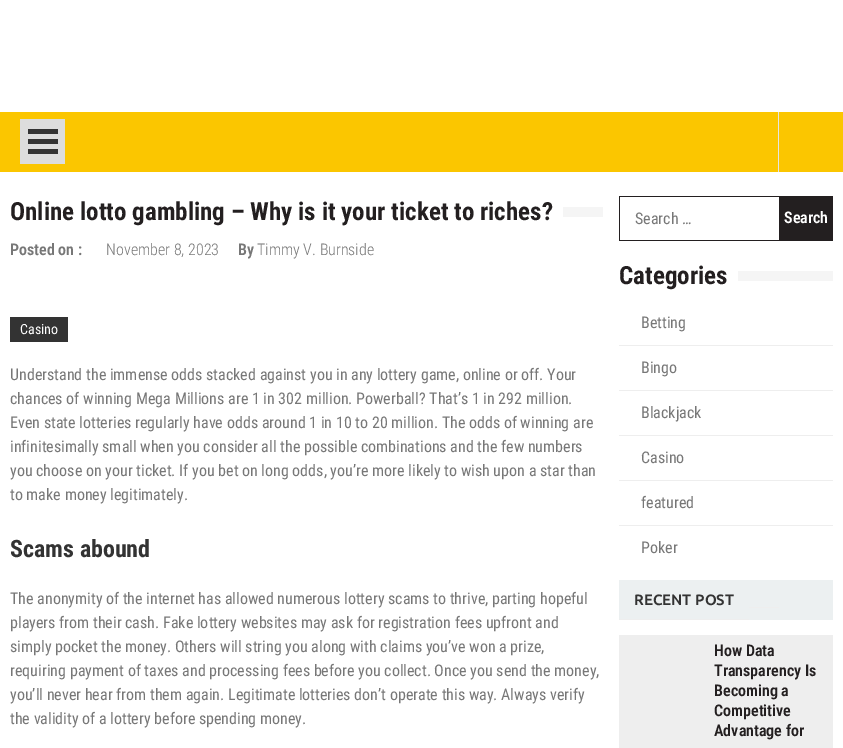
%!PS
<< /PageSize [843 748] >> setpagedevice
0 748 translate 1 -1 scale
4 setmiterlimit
1 setgray
0 0 843 748 rectfill
0.984 0.776 0 setrgbcolor
0 112 843 60 rectfill
0.867 setgray
20 119 45 45 rectfill
0.2 setgray
28 129 30 5 rectfill
28 139 30 5 rectfill
28 149 30 5 rectfill
0.898 setgray
778 112 1 60 rectfill
/RobotoCondensed-Bold [25 0 0 -25 0 0] selectfont
0.137 0.122 0.125 setrgbcolor
10 220 moveto (Online lotto gambling – Why is it your ticket to riches?) show
0.961 setgray
563 207 40 10 rectfill
/RobotoCondensed-SemiBold [16 0 0 -16 0 0] selectfont
0.467 setgray
10 255 moveto (Posted on :) show
/RobotoCondensed-Light [16 0 0 -16 0 0] selectfont
106 255 moveto (November 8, 2023) show
/RobotoCondensed-SemiBold [16 0 0 -16 0 0] selectfont
238 255 moveto (By) show
/RobotoCondensed-Light [16 0 0 -16 0 0] selectfont
257 255 moveto (Timmy V. Burnside) show
0.2 setgray
10 317 58 25 rectfill
/RobotoCondensed-Regular [14 0 0 -14 0 0] selectfont
1 setgray
20 334 moveto (Casino) show
/RobotoCondensed-Regular [16 0 0 -16 0 0] selectfont
0.467 setgray
10 380 moveto (Understand the immense odds stacked against you in any lottery game, online or off. Your) show
10 404 moveto (chances of winning Mega Millions are 1 in 302 million. Powerball? That’s 1 in 292 million.) show
10 428 moveto (Even state lotteries regularly have odds around 1 in 10 to 20 million. The odds of winning are) show
10 452 moveto (infinitesimally small when you consider all the possible combinations and the few numbers) show
10 476 moveto (you choose on your ticket. If you bet on long odds, you’re more likely to wish upon a star than) show
10 500 moveto (to make money legitimately.) show
/RobotoCondensed-Bold [24 0 0 -24 0 0] selectfont
0.2 setgray
10 557 moveto (Scams abound) show
/RobotoCondensed-Regular [16 0 0 -16 0 0] selectfont
0.467 setgray
10 604 moveto (The anonymity of the internet has allowed numerous lottery scams to thrive, parting hopeful) show
10 628 moveto (players from their cash. Fake lottery websites may ask for registration fees upfront and) show
10 652 moveto (simply pocket the money. Others will string you along with claims you’ve won a prize,) show
10 676 moveto (requiring payment of taxes and processing fees before you collect. Once you send the money,) show
10 700 moveto (you’ll never hear from them again. Legitimate lotteries don’t operate this way. Always verify) show
10 724 moveto (the validity of a lottery before spending money.) show
0.137 0.122 0.125 setrgbcolor
619 196 160 1 rectfill
619 240 160 1 rectfill
619 196 1 45 rectfill
0.467 setgray
635 224 moveto (Search …) show
0.137 0.122 0.125 setrgbcolor
779 196 54 45 rectfill
/RobotoCondensed-SemiBold [16 0 0 -16 0 0] selectfont
1 setgray
784 223 moveto (Search) show
/RobotoCondensed-Bold [25 0 0 -25 0 0] selectfont
0.137 0.122 0.125 setrgbcolor
619 284 moveto (Categories) show
0.961 setgray
738 271 95 10 rectfill
0.933 setgray
619 345 214 1 rectfill
/RobotoCondensed-Regular [16 0 0 -16 0 0] selectfont
0.467 setgray
641 328 moveto (Betting) show
0.933 setgray
619 390 214 1 rectfill
0.467 setgray
641 373 moveto (Bingo) show
0.933 setgray
619 435 214 1 rectfill
0.467 setgray
641 418 moveto (Blackjack) show
0.933 setgray
619 480 214 1 rectfill
0.467 setgray
641 463 moveto (Casino) show
0.933 setgray
619 525 214 1 rectfill
0.467 setgray
641 508 moveto (featured) show
641 553 moveto (Poker) show
0.925 0.941 0.945 setrgbcolor
619 580 214 40 rectfill
0.933 setgray
619 619 130 1 rectfill
/Ubuntu-Bold [15 0 0 -15 0 0] selectfont
0.2 setgray
634 605 moveto (RECENT POST) show
0.933 setgray
749 607 30 1 rectfill
619 635 214 113 rectfill
/RobotoCondensed-SemiBold [16 0 0 -16 0 0] selectfont
0.137 0.122 0.125 setrgbcolor
714 656 moveto (How Data) show
714 676 moveto (Transparency Is) show
714 696 moveto (Becoming a) show
714 716 moveto (Competitive) show
714 736 moveto (Advantage for) show
showpage
